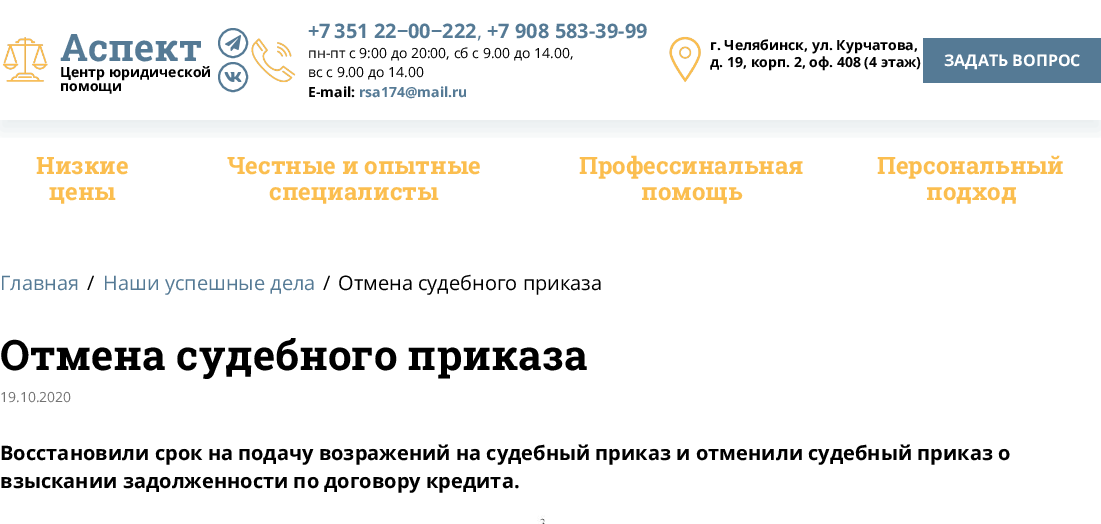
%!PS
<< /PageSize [1101 524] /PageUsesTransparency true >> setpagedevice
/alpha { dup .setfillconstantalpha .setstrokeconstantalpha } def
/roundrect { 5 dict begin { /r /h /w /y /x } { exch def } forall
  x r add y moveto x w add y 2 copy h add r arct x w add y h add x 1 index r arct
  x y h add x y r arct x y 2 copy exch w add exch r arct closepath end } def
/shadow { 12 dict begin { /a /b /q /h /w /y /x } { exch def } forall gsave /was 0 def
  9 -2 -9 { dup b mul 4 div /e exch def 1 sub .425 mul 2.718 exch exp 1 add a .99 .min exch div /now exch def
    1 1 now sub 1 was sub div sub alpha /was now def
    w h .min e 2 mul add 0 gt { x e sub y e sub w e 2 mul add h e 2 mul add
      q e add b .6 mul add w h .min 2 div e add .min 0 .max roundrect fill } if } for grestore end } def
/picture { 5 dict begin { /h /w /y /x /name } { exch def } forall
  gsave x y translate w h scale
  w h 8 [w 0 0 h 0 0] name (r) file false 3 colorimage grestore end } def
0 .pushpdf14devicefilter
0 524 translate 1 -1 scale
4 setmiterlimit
1 setgray
0 0 1101 524 rectfill
gsave
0 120 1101 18 rectclip
0.059 0.275 0.318 setrgbcolor
0 10 1101 120 0 10 0.1 shadow
grestore
(img1.rgb) 2 37 46 45 picture
/RobotoSlab-Bold [38 0 0 -38 0 0] selectfont
0.333 0.478 0.584 setrgbcolor
60 61 moveto (Аспект) show
/OpenSans-Bold [14 0 0 -14 0 0] selectfont
0 setgray
60 77 moveto (Центр юридической) show
60 91 moveto (помощи) show
0.333 0.478 0.584 setrgbcolor
2 setlinewidth
newpath 233 43 14 0 360 arc closepath stroke
(img2.rgb) 225 35 16 16 picture
newpath 233 77 14 0 360 arc closepath stroke
(img3.rgb) 224 72 18 10 picture
(img4.rgb) 251 38 45 45 picture
/OpenSans-Bold [20 0 0 -20 0 0] selectfont
308 38 moveto (+7 351 22−00−222) show
/OpenSans-Regular [20 0 0 -20 0 0] selectfont
477 38 moveto (,) show
/OpenSans-Bold [20 0 0 -20 0 0] selectfont
487 38 moveto (+7 908 583-39-99) show
/OpenSans-Regular [14 0 0 -14 0 0] selectfont
0 setgray
308 58 moveto (пн-пт с 9:00 до 20:00, сб с 9.00 до 14.00,) show
308 77 moveto (вс с 9.00 до 14.00) show
/OpenSans-Bold [14 0 0 -14 0 0] selectfont
308 97 moveto (E-mail:) show
0.333 0.478 0.584 setrgbcolor
359 97 moveto (rsa174@mail.ru) show
(img5.rgb) 669 36 32 47 picture
0 setgray
710 50 moveto (г. Челябинск, ул. Курчатова,) show
710 67 moveto (д. 19, корп. 2, оф. 408 \(4 этаж\)) show
0.333 0.478 0.584 setrgbcolor
923 38 178 45 rectfill
/OpenSans-Bold [16 0 0 -16 0 0] selectfont
1 setgray
944 66 moveto (ЗАДАТЬ ВОПРОС) show
/RobotoSlab-Bold [24 0 0 -24 0 0] selectfont
0.984 0.745 0.31 setrgbcolor
36 174 moveto (Низкие) show
49 200 moveto (цены) show
227 174 moveto (Честные и опытные) show
269 200 moveto (специалисты) show
579 174 moveto (Профессинальная) show
641 200 moveto (помощь) show
877 174 moveto (Персональный) show
926 200 moveto (подход) show
/OpenSans-Regular [20 0 0 -20 0 0] selectfont
0.333 0.478 0.584 setrgbcolor
0 290 moveto (Главная) show
0 setgray
87 290 moveto (/) show
0.333 0.478 0.584 setrgbcolor
103 290 moveto (Наши успешные дела) show
0 setgray
323 290 moveto (/) show
338 290 moveto (Отмена судебного приказа) show
/RobotoSlab-Bold [42 0 0 -42 0 0] selectfont
0 370 moveto (Отмена судебного приказа) show
/OpenSans-Regular [14 0 0 -14 0 0] selectfont
0.451 setgray
0 402 moveto (19.10.2020) show
/OpenSans-Bold [20 0 0 -20 0 0] selectfont
0 setgray
0 460 moveto (Восстановили срок на подачу возражений на судебный приказ и отменили судебный приказ о) show
0 488 moveto (взыскании задолженности по договору кредита.) show
(img6.rgb) 537 515 8 9 picture
.poppdf14devicefilter showpage
